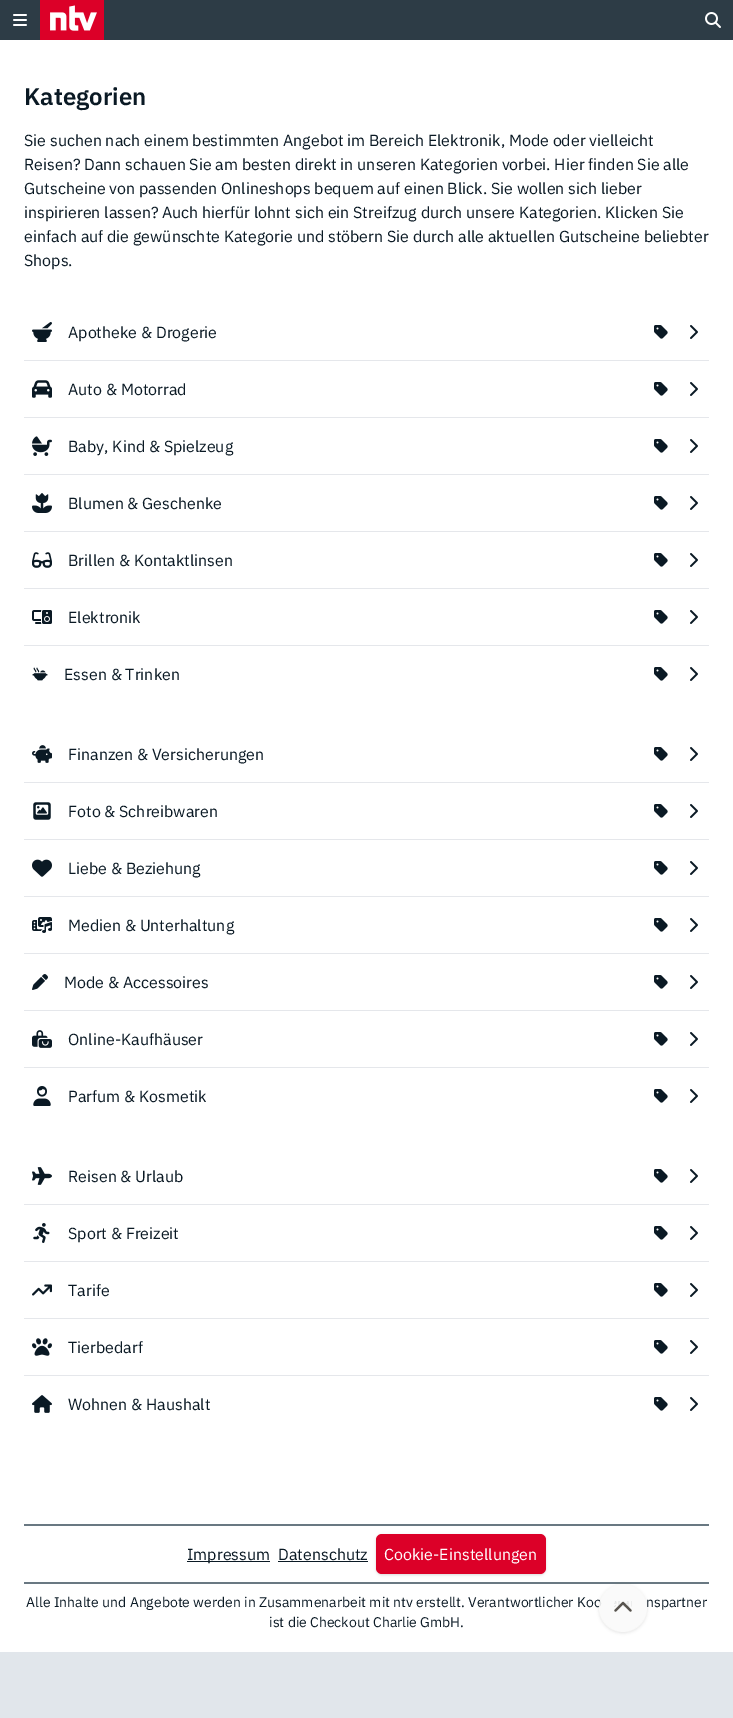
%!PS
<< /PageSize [733 1718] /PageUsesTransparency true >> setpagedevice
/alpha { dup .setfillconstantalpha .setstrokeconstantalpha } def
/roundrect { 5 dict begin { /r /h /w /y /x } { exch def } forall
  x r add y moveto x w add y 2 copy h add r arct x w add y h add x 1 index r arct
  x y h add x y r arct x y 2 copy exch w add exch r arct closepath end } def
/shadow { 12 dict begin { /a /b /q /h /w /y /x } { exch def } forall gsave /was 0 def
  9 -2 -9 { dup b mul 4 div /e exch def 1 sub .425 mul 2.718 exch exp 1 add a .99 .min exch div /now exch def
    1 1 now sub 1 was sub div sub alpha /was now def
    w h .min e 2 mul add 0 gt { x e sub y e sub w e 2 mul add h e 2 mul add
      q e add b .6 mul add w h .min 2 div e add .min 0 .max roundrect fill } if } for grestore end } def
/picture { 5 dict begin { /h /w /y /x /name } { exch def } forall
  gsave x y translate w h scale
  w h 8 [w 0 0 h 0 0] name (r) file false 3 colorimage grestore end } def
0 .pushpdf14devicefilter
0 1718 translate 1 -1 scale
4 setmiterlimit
0.882 0.902 0.922 setrgbcolor
0 0 733 1718 rectfill
0.176 0.235 0.275 setrgbcolor
0 0 733 40 rectfill
(img1.rgb) 13 14 14 12 picture
(img2.rgb) 40 0 64 40 picture
(img3.rgb) 705 12 16 16 picture
1 setgray
0 40 733 1612 rectfill
/IBMPlexSans-SemiBold [24 0 0 -24 0 0] selectfont
0.039 0.098 0.141 setrgbcolor
24 105 moveto (Kategorien) show
/IBMPlexSans-Regular [16 0 0 -16 0 0] selectfont
24 146 moveto (Sie suchen nach einem bestimmten Angebot im Bereich Elektronik, Mode oder vielleicht) show
24 170 moveto (Reisen? Dann schauen Sie am besten direkt in unseren Kategorien vorbei. Hier finden Sie alle) show
24 194 moveto (Gutscheine von passenden Onlineshops bequem auf einen Blick. Sie wollen sich lieber) show
24 218 moveto (inspirieren lassen? Auch hierfür lohnt sich ein Streifzug durch unsere Kategorien. Klicken Sie) show
24 242 moveto (einfach auf die gewünschte Kategorie und stöbern Sie durch alle aktuellen Gutscheine beliebter) show
24 266 moveto (Shops.) show
(img4.rgb) 32 322 20 20 picture
68 338 moveto (Apotheke & Drogerie) show
(img5.rgb) 654 325 14 14 picture
(img6.rgb) 690 325 8 14 picture
0.898 0.906 0.922 setrgbcolor
24 360 685 1 rectfill
(img7.rgb) 32 380 20 18 picture
0.039 0.098 0.141 setrgbcolor
68 395 moveto (Auto & Motorrad) show
(img5.rgb) 654 382 14 14 picture
(img6.rgb) 690 382 8 14 picture
0.898 0.906 0.922 setrgbcolor
24 417 685 1 rectfill
(img8.rgb) 32 436 20 20 picture
0.039 0.098 0.141 setrgbcolor
68 452 moveto (Baby, Kind & Spielzeug) show
(img5.rgb) 654 439 14 14 picture
(img6.rgb) 690 439 8 14 picture
0.898 0.906 0.922 setrgbcolor
24 474 685 1 rectfill
(img9.rgb) 32 493 20 20 picture
0.039 0.098 0.141 setrgbcolor
68 509 moveto (Blumen & Geschenke) show
(img5.rgb) 654 496 14 14 picture
(img6.rgb) 690 496 8 14 picture
0.898 0.906 0.922 setrgbcolor
24 531 685 1 rectfill
(img10.rgb) 32 552 20 16 picture
0.039 0.098 0.141 setrgbcolor
68 566 moveto (Brillen & Kontaktlinsen) show
(img5.rgb) 654 553 14 14 picture
(img6.rgb) 690 553 8 14 picture
0.898 0.906 0.922 setrgbcolor
24 588 685 1 rectfill
(img11.rgb) 32 610 20 14 picture
0.039 0.098 0.141 setrgbcolor
68 623 moveto (Elektronik) show
(img5.rgb) 654 610 14 14 picture
(img6.rgb) 690 610 8 14 picture
0.898 0.906 0.922 setrgbcolor
24 645 685 1 rectfill
(img12.rgb) 32 667 16 14 picture
0.039 0.098 0.141 setrgbcolor
64 680 moveto (Essen & Trinken) show
(img5.rgb) 654 667 14 14 picture
(img6.rgb) 690 667 8 14 picture
(img13.rgb) 32 745 20 18 picture
68 760 moveto (Finanzen & Versicherungen) show
(img5.rgb) 654 747 14 14 picture
(img6.rgb) 690 747 8 14 picture
0.898 0.906 0.922 setrgbcolor
24 782 685 1 rectfill
(img14.rgb) 33 802 18 18 picture
0.039 0.098 0.141 setrgbcolor
68 817 moveto (Foto & Schreibwaren) show
(img5.rgb) 654 804 14 14 picture
(img6.rgb) 690 804 8 14 picture
0.898 0.906 0.922 setrgbcolor
24 839 685 1 rectfill
(img15.rgb) 32 859 20 18 picture
0.039 0.098 0.141 setrgbcolor
68 874 moveto (Liebe & Beziehung) show
(img5.rgb) 654 861 14 14 picture
(img6.rgb) 690 861 8 14 picture
0.898 0.906 0.922 setrgbcolor
24 896 685 1 rectfill
(img16.rgb) 32 917 20 16 picture
0.039 0.098 0.141 setrgbcolor
68 931 moveto (Medien & Unterhaltung) show
(img5.rgb) 654 918 14 14 picture
(img6.rgb) 690 918 8 14 picture
0.898 0.906 0.922 setrgbcolor
24 953 685 1 rectfill
(img17.rgb) 32 974 16 16 picture
0.039 0.098 0.141 setrgbcolor
64 988 moveto (Mode & Accessoires) show
(img5.rgb) 654 975 14 14 picture
(img6.rgb) 690 975 8 14 picture
0.898 0.906 0.922 setrgbcolor
24 1010 685 1 rectfill
(img18.rgb) 32 1030 20 18 picture
0.039 0.098 0.141 setrgbcolor
68 1045 moveto (Online-Kaufhäuser) show
(img5.rgb) 654 1032 14 14 picture
(img6.rgb) 690 1032 8 14 picture
0.898 0.906 0.922 setrgbcolor
24 1067 685 1 rectfill
(img19.rgb) 33 1086 18 20 picture
0.039 0.098 0.141 setrgbcolor
68 1102 moveto (Parfum & Kosmetik) show
(img5.rgb) 654 1089 14 14 picture
(img6.rgb) 690 1089 8 14 picture
(img20.rgb) 32 1167 20 18 picture
68 1182 moveto (Reisen & Urlaub) show
(img5.rgb) 654 1169 14 14 picture
(img6.rgb) 690 1169 8 14 picture
0.898 0.906 0.922 setrgbcolor
24 1204 685 1 rectfill
(img21.rgb) 33 1223 17 20 picture
0.039 0.098 0.141 setrgbcolor
68 1239 moveto (Sport & Freizeit) show
(img5.rgb) 654 1226 14 14 picture
(img6.rgb) 690 1226 8 14 picture
0.898 0.906 0.922 setrgbcolor
24 1261 685 1 rectfill
(img22.rgb) 32 1284 20 12 picture
0.039 0.098 0.141 setrgbcolor
68 1296 moveto (Tarife) show
(img5.rgb) 654 1283 14 14 picture
(img6.rgb) 690 1283 8 14 picture
0.898 0.906 0.922 setrgbcolor
24 1318 685 1 rectfill
(img23.rgb) 32 1338 20 18 picture
0.039 0.098 0.141 setrgbcolor
68 1353 moveto (Tierbedarf) show
(img5.rgb) 654 1340 14 14 picture
(img6.rgb) 690 1340 8 14 picture
0.898 0.906 0.922 setrgbcolor
24 1375 685 1 rectfill
(img24.rgb) 32 1395 20 18 picture
0.039 0.098 0.141 setrgbcolor
68 1410 moveto (Wohnen & Haushalt) show
(img5.rgb) 654 1397 14 14 picture
(img6.rgb) 690 1397 8 14 picture
0.412 0.471 0.51 setrgbcolor
24 1582 685 2 rectfill
gsave
newpath 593 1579 moveto 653 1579 lineto 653 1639 lineto 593 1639 lineto closepath 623 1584 moveto 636.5 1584 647 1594.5 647 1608 curveto 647 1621.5 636.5 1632 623 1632 curveto 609.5 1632 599 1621.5 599 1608 curveto 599 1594.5 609.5 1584 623 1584 curveto closepath eoclip newpath
0 setgray
599 1585 48 48 24 1.5 0.1 shadow
grestore
/IBMPlexSans-Regular [14 0 0 -14 0 0] selectfont
0.039 0.098 0.141 setrgbcolor
26 1607 moveto (Alle Inhalte und Angebote werden in Zusammenarbeit mit ntv erstellt. Verantwortlicher Koo) show
0.9 alpha
0.98 0.98 0.976 setrgbcolor
newpath 623 1608 24 0 360 arc closepath fill
1 alpha
(img25.rgb) 614 1601 18 11 picture
0.412 0.471 0.51 setrgbcolor
24 1524 685 2 rectfill
0.039 0.098 0.141 setrgbcolor
187 1561 83 1 rectfill
/IBMPlexSans-Regular [16 0 0 -16 0 0] selectfont
187 1560 moveto (Impressum) show
278 1560 moveto (Datenschutz) show
278 1561 90 1 rectfill
0 setgray
377 1536 168 38 5 1 0.1 shadow
376 1535 170 40 6 1.5 0.1 shadow
0.863 0 0.157 setrgbcolor
376 1534 170 40 6 roundrect fill
1 setgray
384 1560 moveto (Cookie-Einstellungen) show
/IBMPlexSans-Regular [14 0 0 -14 0 0] selectfont
0.039 0.098 0.141 setrgbcolor
646 1607 moveto (nspartner) show
269 1627 moveto (ist die Checkout Charlie GmbH.) show
.poppdf14devicefilter showpage
